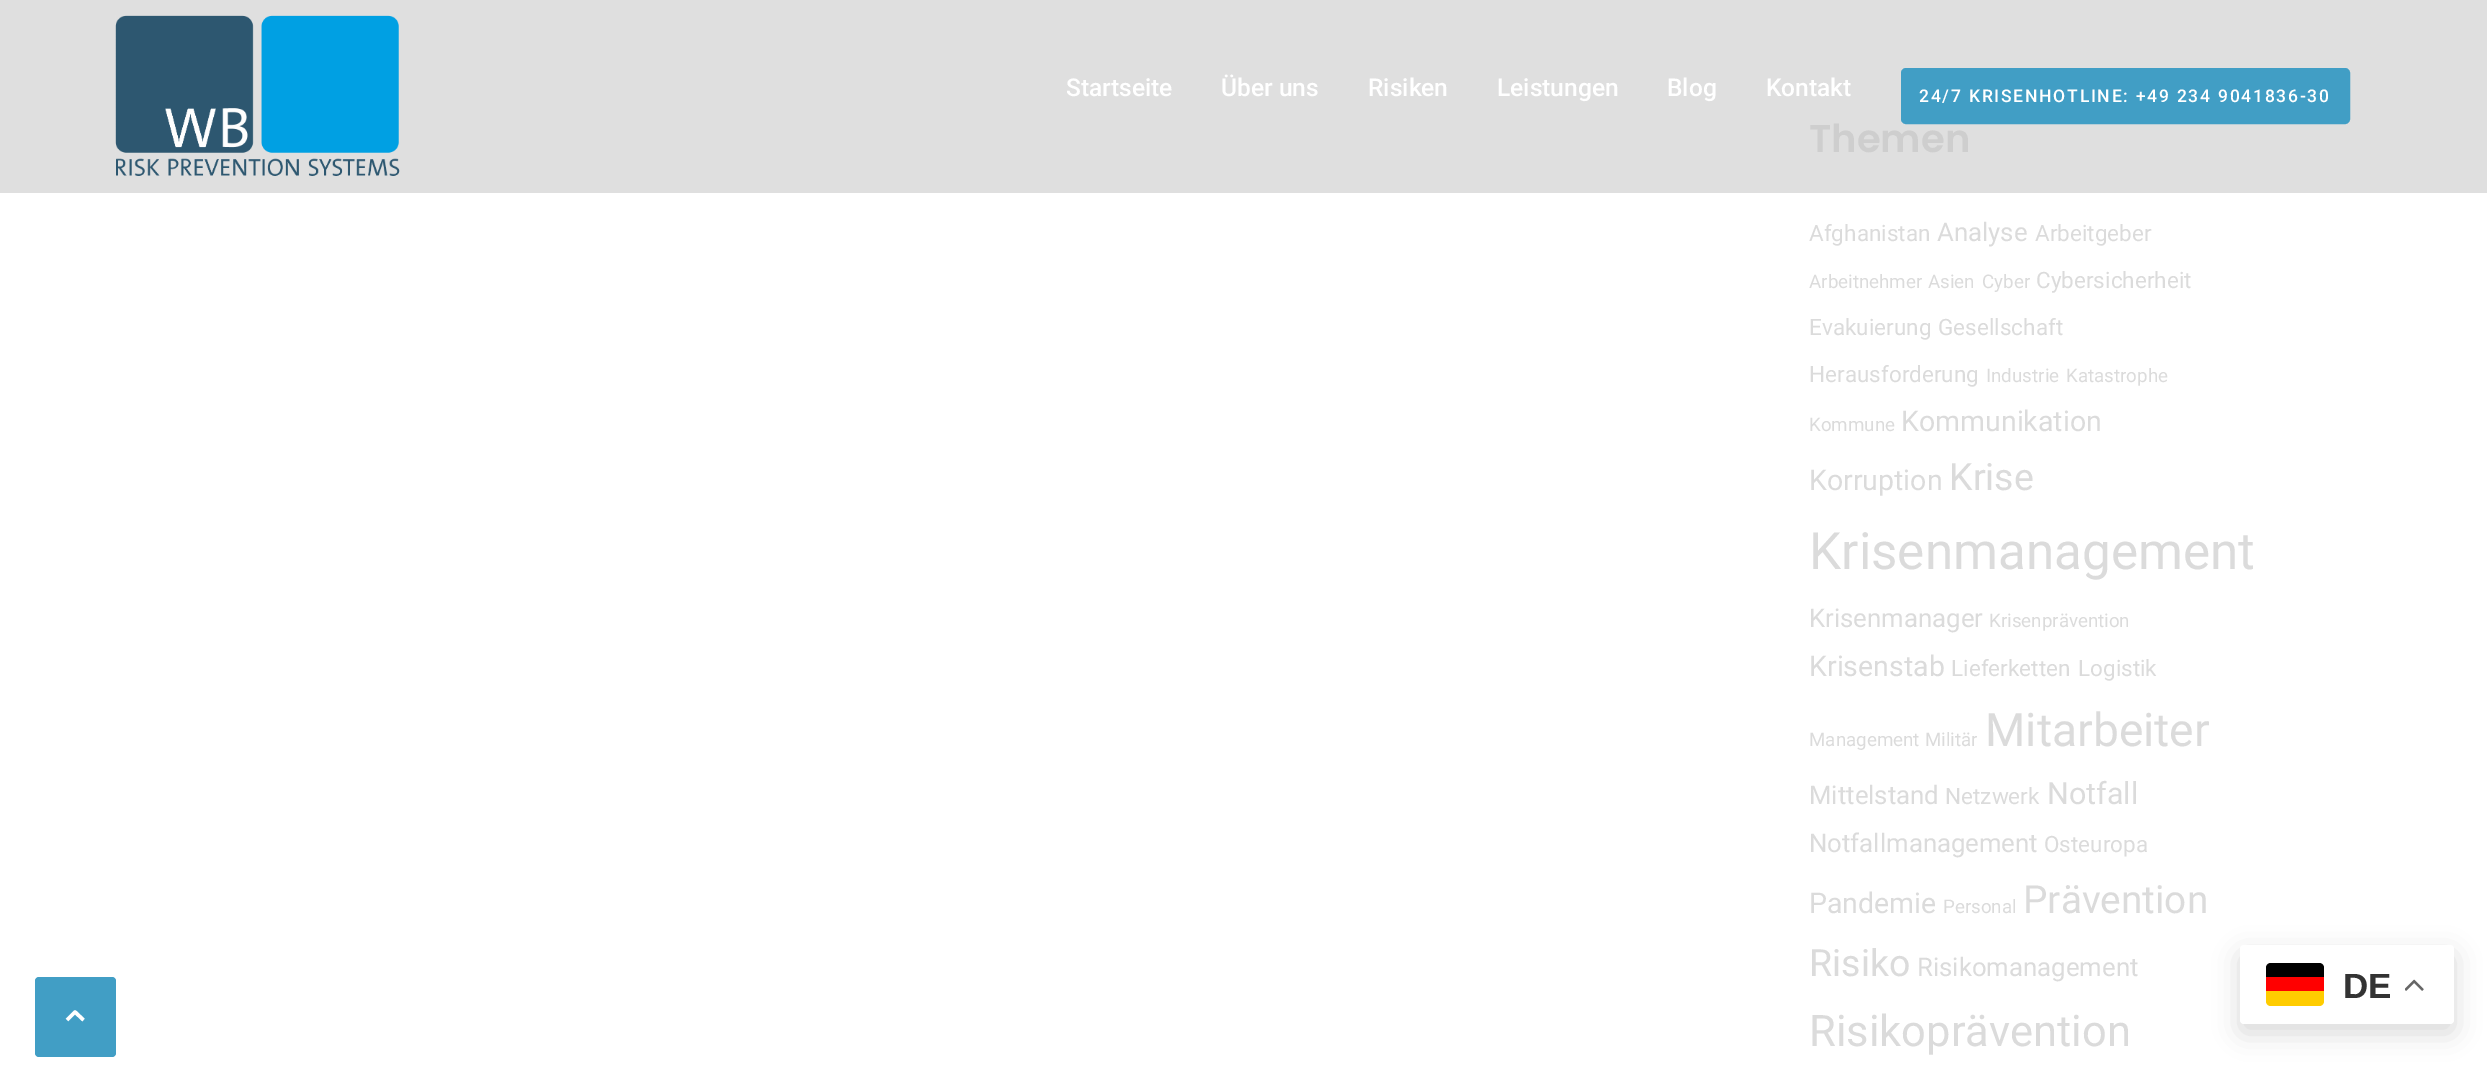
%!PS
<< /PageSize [2487 1074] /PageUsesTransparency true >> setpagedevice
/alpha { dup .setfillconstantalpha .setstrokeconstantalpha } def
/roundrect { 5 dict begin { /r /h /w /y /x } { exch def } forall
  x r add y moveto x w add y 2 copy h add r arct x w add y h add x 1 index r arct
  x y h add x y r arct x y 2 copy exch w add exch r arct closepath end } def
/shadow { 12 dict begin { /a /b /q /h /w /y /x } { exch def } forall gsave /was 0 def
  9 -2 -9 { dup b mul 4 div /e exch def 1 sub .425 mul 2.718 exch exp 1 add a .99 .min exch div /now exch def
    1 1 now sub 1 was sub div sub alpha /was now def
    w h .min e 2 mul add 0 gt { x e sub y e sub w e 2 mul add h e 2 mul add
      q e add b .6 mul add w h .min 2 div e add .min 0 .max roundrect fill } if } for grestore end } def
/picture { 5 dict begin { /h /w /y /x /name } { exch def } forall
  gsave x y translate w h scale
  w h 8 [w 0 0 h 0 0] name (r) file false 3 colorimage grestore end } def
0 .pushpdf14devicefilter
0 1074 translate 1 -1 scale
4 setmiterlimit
1 setgray
0 0 2487 1074 rectfill
0.875 setgray
0 0 2487 193 rectfill
0.255 0.62 0.773 setrgbcolor
35 977 81 80 4 roundrect fill
1 setgray
3.5 setlinewidth
1 setlinejoin
newpath 67 1020 moveto 75 1012 lineto 83.5 1020 lineto stroke
(img1.rgb) 115 15 285 161 picture
/Roboto-Medium [24.5 0 0 -24.5 0 0] selectfont
1066 96 moveto (Startseite) show
1221 96 moveto (Über uns) show
1368 96 moveto (Risiken) show
1497 96 moveto (Leistungen) show
1667 96 moveto (Blog) show
1766 96 moveto (Kontakt) show
/Poppins-SemiBold [38.5 0 0 -38.5 0 0] selectfont
0.808 setgray
1809 152 moveto (Themen) show
0.255 0.62 0.773 setrgbcolor
1902 69 447 54 4 roundrect gsave fill grestore
2 setlinewidth
0 setlinejoin
stroke
/Roboto-Medium [17.5 0 0 -17.5 0 0] selectfont
1 setgray
1919 102 moveto 1.75 0 (24/7 KRISENHOTLINE: +49 234 9041836-30) ashow
/Roboto-Regular [22.5 0 0 -22.5 0 0] selectfont
0.859 setgray
1809 241 moveto (Afghanistan) show
/Roboto-Regular [25.75 0 0 -25.75 0 0] selectfont
1937 241 moveto (Analyse) show
/Roboto-Regular [22.5 0 0 -22.5 0 0] selectfont
2035 241 moveto (Arbeitgeber) show
/Roboto-Regular [18.75 0 0 -18.75 0 0] selectfont
1809 288 moveto (Arbeitnehmer) show
1928 288 moveto (Asien) show
1982 288 moveto (Cyber) show
/Roboto-Regular [22.5 0 0 -22.5 0 0] selectfont
2036 288 moveto (Cybersicherheit) show
1809 335 moveto (Evakuierung) show
1938 335 moveto (Gesellschaft) show
1809 382 moveto (Herausforderung) show
/Roboto-Regular [18.75 0 0 -18.75 0 0] selectfont
1986 382 moveto (Industrie) show
2066 382 moveto (Katastrophe) show
1809 431 moveto (Kommune) show
/Roboto-Regular [28.5 0 0 -28.5 0 0] selectfont
1901 431 moveto (Kommunikation) show
1809 490 moveto (Korruption) show
/Roboto-Regular [37.5 0 0 -37.5 0 0] selectfont
1949 490 moveto (Krise) show
/Roboto-Regular [51.25 0 0 -51.25 0 0] selectfont
1809 569 moveto (Krisenmanagement) show
/Roboto-Regular [25.75 0 0 -25.75 0 0] selectfont
1809 627 moveto (Krisenmanager) show
/Roboto-Regular [18.75 0 0 -18.75 0 0] selectfont
1989 627 moveto (Krisenprävention) show
/Roboto-Regular [28.5 0 0 -28.5 0 0] selectfont
1809 676 moveto (Krisenstab) show
/Roboto-Regular [22.5 0 0 -22.5 0 0] selectfont
1951 676 moveto (Lieferketten) show
2078 676 moveto (Logistik) show
/Roboto-Regular [18.75 0 0 -18.75 0 0] selectfont
1809 746 moveto (Management) show
1925 746 moveto (Militär) show
/Roboto-Regular [46.25 0 0 -46.25 0 0] selectfont
1985 746 moveto (Mitarbeiter) show
/Roboto-Regular [25.75 0 0 -25.75 0 0] selectfont
1809 804 moveto (Mittelstand) show
/Roboto-Regular [22.5 0 0 -22.5 0 0] selectfont
1945 804 moveto (Netzwerk) show
/Roboto-Regular [30.5 0 0 -30.5 0 0] selectfont
2047 804 moveto (Notfall) show
/Roboto-Regular [25.75 0 0 -25.75 0 0] selectfont
1809 852 moveto (Notfallmanagement) show
/Roboto-Regular [22.5 0 0 -22.5 0 0] selectfont
2044 852 moveto (Osteuropa) show
/Roboto-Regular [28.5 0 0 -28.5 0 0] selectfont
1809 913 moveto (Pandemie) show
/Roboto-Regular [18.75 0 0 -18.75 0 0] selectfont
1943 913 moveto (Personal) show
/Roboto-Regular [38.75 0 0 -38.75 0 0] selectfont
2023 913 moveto (Prävention) show
/Roboto-Regular [37.5 0 0 -37.5 0 0] selectfont
1809 976 moveto (Risiko) show
/Roboto-Regular [25.75 0 0 -25.75 0 0] selectfont
1917 976 moveto (Risikomanagement) show
/Roboto-Regular [43.5 0 0 -43.5 0 0] selectfont
1809 1046 moveto (Risikoprävention) show
0 setgray
2240 954 214 79 4 13 0.15 shadow
1 setgray
2240 945 214 79 4 roundrect fill
1 0.8 0 setrgbcolor
newpath 2266 991 moveto 2324 991 lineto 2324 1001 lineto 2324 1004 2322 1006 2319 1006 curveto 2271 1006 lineto 2268 1006 2266 1004 2266 1001 curveto closepath fill
0 setgray
newpath 2271 963 moveto 2319 963 lineto 2322 963 2324 965 2324 968 curveto 2324 977 lineto 2266 977 lineto 2266 968 lineto 2266 965 2268 963 2271 963 curveto closepath fill
1 0 0 setrgbcolor
2266 977 58 14 rectfill
/LiberationSans-Bold [35 0 0 -35 0 0] selectfont
0.2 setgray
2343 998 moveto (DE) show
(img2.rgb) 2405 979 19 12 picture
.poppdf14devicefilter showpage
